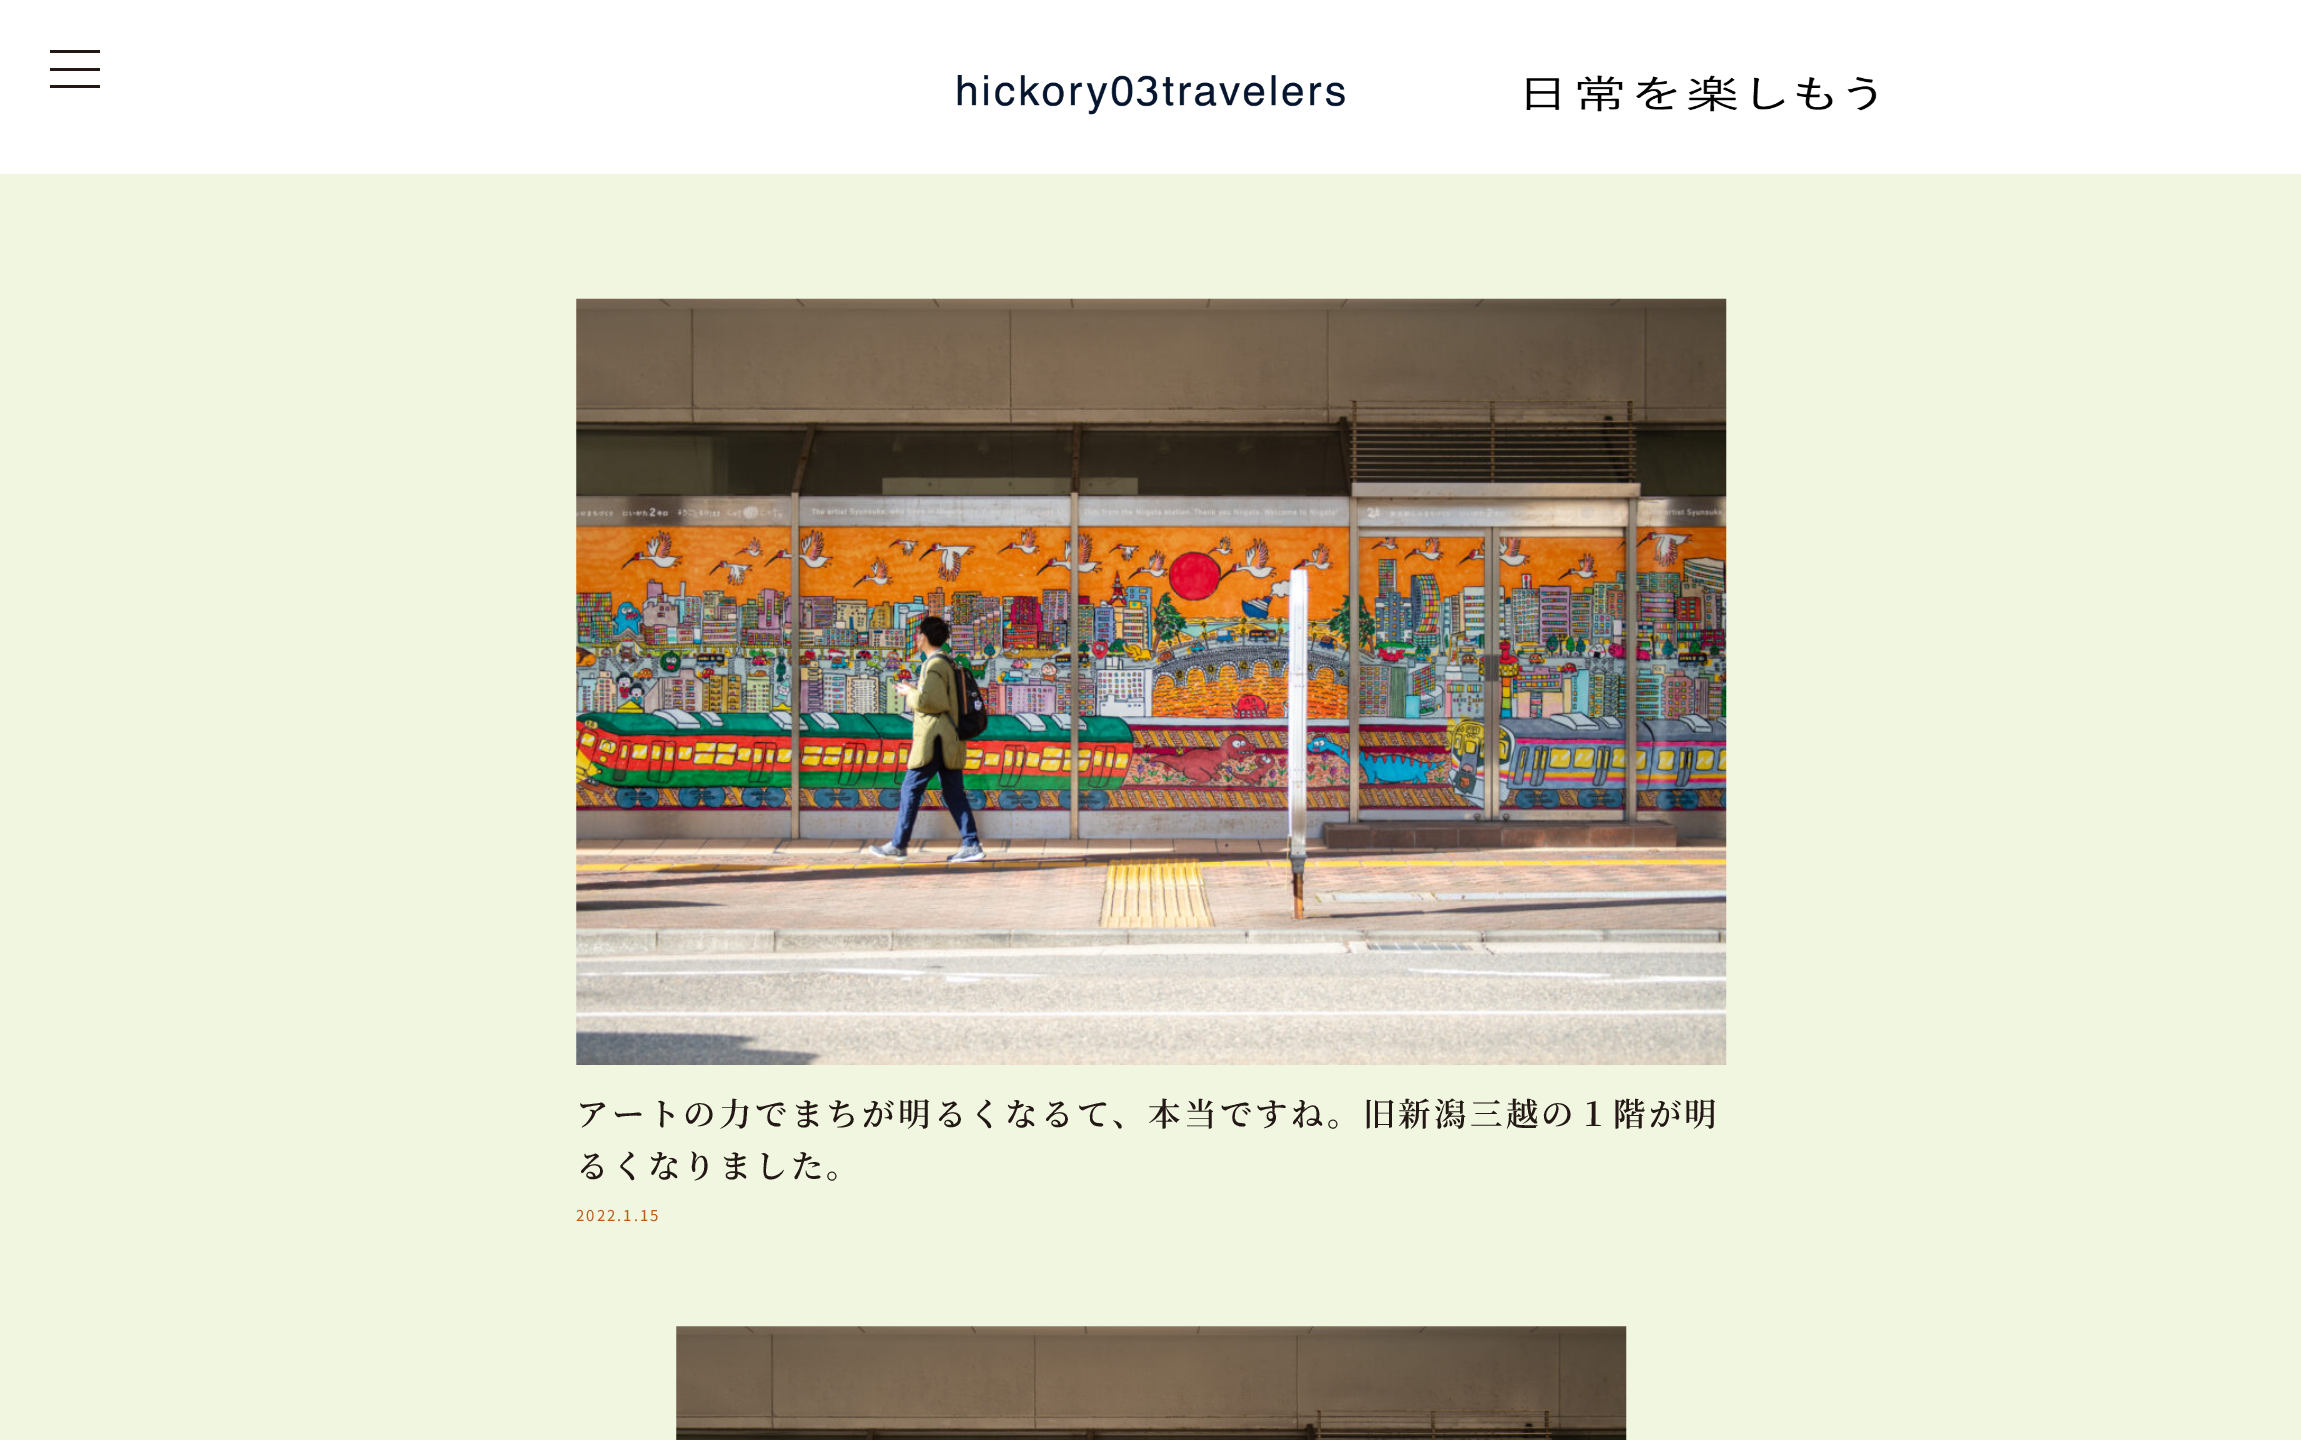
%!PS
<< /PageSize [2301 1440] >> setpagedevice
/picture { 5 dict begin { /h /w /y /x /name } { exch def } forall
  gsave x y translate w h scale
  w h 8 [w 0 0 h 0 0] name (r) file false 3 colorimage grestore end } def
0 1440 translate 1 -1 scale
4 setmiterlimit
1 setgray
0 0 2301 1440 rectfill
0.137 0.094 0.082 setrgbcolor
50 50 50 3 rectfill
50 68 50 3 rectfill
50 85 50 3 rectfill
(img1.rgb) 957 75 388 40 picture
(img2.rgb) 1526 75 351 37 picture
0.941 0.965 0.878 setrgbcolor
0 174 2301 1266 rectfill
(img3.rgb) 576 298 1151 767 picture
/NotoSerifJP-SemiBold [32.5 0 0 -32.5 0 0] selectfont
0.137 0.094 0.082 setrgbcolor
576 1126 moveto 3.25 0 (アートの力でまちが明るくなるて、本当ですね。旧新潟三越の１階が明) ashow
576 1178 moveto 3.25 0 (るくなりました。) ashow
/NotoSansJP-Regular [15 0 0 -15 0 0] selectfont
0.733 0.357 0.118 setrgbcolor
576 1221 moveto 2 0 (2022.1.15) ashow
(img4.rgb) 676 1326 951 114 picture
showpage
